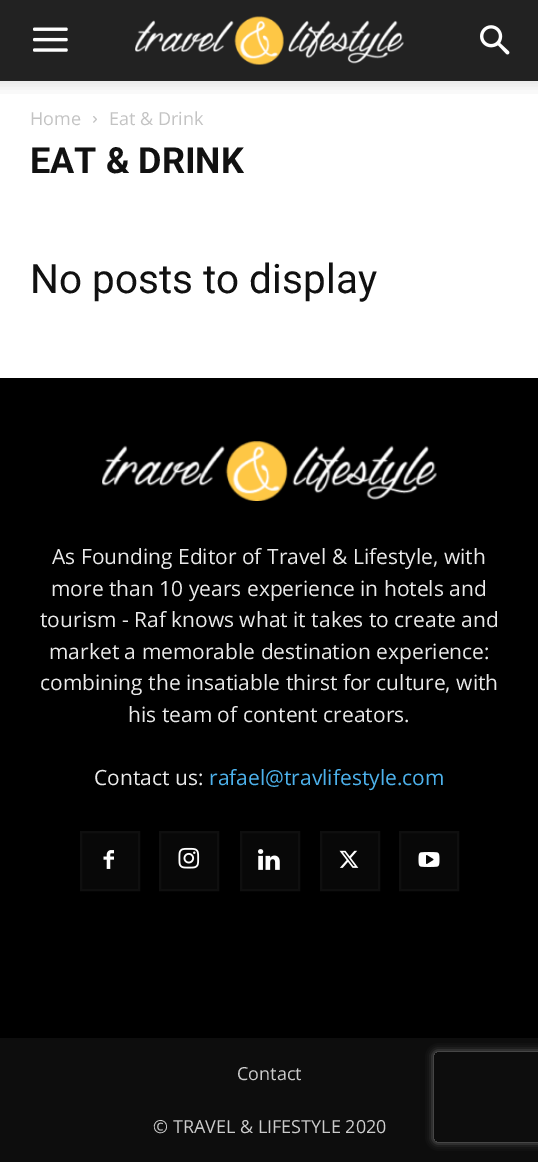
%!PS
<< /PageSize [538 1162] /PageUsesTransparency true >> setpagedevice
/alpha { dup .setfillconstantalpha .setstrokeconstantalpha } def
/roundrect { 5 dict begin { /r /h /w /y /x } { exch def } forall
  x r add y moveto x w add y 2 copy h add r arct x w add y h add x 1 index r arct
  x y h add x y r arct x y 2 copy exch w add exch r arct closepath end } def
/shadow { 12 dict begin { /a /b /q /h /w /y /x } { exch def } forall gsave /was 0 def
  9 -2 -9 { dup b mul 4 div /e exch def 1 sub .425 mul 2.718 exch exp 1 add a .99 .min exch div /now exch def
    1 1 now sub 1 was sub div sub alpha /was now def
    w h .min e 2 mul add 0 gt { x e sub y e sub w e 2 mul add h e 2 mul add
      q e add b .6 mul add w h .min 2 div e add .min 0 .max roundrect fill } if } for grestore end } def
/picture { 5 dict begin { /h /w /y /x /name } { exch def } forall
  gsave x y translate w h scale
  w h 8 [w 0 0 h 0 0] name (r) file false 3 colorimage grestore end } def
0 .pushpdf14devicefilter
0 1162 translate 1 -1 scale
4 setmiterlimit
1 setgray
0 0 538 1162 rectfill
0.133 setgray
0 0 538 81 rectfill
(img1.rgb) 33 27 35 25 picture
(img2.rgb) 135 16 269 49 picture
(img3.rgb) 480 25 30 30 picture
(img4.rgb) 0 81 538 13 picture
/OpenSans-Regular [18 0 0 -18 0 0] selectfont
0.765 setgray
30 125 moveto (Home) show
(img5.rgb) 93 116 4 7 picture
109 125 moveto (Eat & Drink) show
/Roboto-Bold [36 0 0 -36 0 0] selectfont
0.067 setgray
30 173 moveto (EAT & DRINK) show
/Roboto-Regular [40.5 0 0 -40.5 0 0] selectfont
30 293 moveto (No posts to display) show
0 setgray
0 378 538 660 rectfill
(img6.rgb) 102 441 335 60 picture
/OpenSans-Regular [21 0 0 -21 0 0] selectfont
0.918 setgray
52 564 moveto (As Founding Editor of Travel & Lifestyle, with) show
51 596 moveto (more than 10 years experience in hotels and) show
40 627 moveto (tourism - Raf knows what it takes to create and) show
49 659 moveto (market a memorable destination experience:) show
40 690 moveto (combining the insatiable thirst for culture, with) show
128 722 moveto (his team of content creators.) show
94 785 moveto (Contact us:) show
0.302 0.698 0.925 setrgbcolor
209 785 moveto (rafael@travlifestyle.com) show
0.031 setgray
82 833 56 56 rectfill
(img7.rgb) 103 850 11 19 picture
0.059 setgray
2 setlinewidth
81 832 58 58 rectstroke
0.031 setgray
161 833 56 56 rectfill
(img8.rgb) 178 847 22 22 picture
0.059 setgray
160 832 58 58 rectstroke
0.031 setgray
242 833 56 56 rectfill
(img9.rgb) 258 849 22 21 picture
0.059 setgray
241 832 58 58 rectstroke
0.031 setgray
322 833 56 56 rectfill
(img10.rgb) 339 850 20 18 picture
0.059 setgray
321 832 58 58 rectstroke
0.031 setgray
401 833 56 56 rectfill
(img11.rgb) 418 852 22 15 picture
0.059 setgray
400 832 58 58 rectstroke
0.051 setgray
0 1038 538 124 rectfill
/OpenSans-Regular [18 0 0 -18 0 0] selectfont
0.8 setgray
237 1080 moveto (Contact) show
153 1133 moveto (© TRAVEL & LIFESTYLE 2020) show
gsave
newpath 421 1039 moveto 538 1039 lineto 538 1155 lineto 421 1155 lineto closepath 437 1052 moveto 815 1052 lineto 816.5 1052 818 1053.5 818 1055 curveto 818 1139 lineto 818 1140.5 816.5 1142 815 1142 curveto 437 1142 lineto 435.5 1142 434 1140.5 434 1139 curveto 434 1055 lineto 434 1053.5 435.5 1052 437 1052 curveto closepath eoclip newpath
0.502 setgray
434 1052 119 90 3 4 1 shadow
grestore
.poppdf14devicefilter showpage
